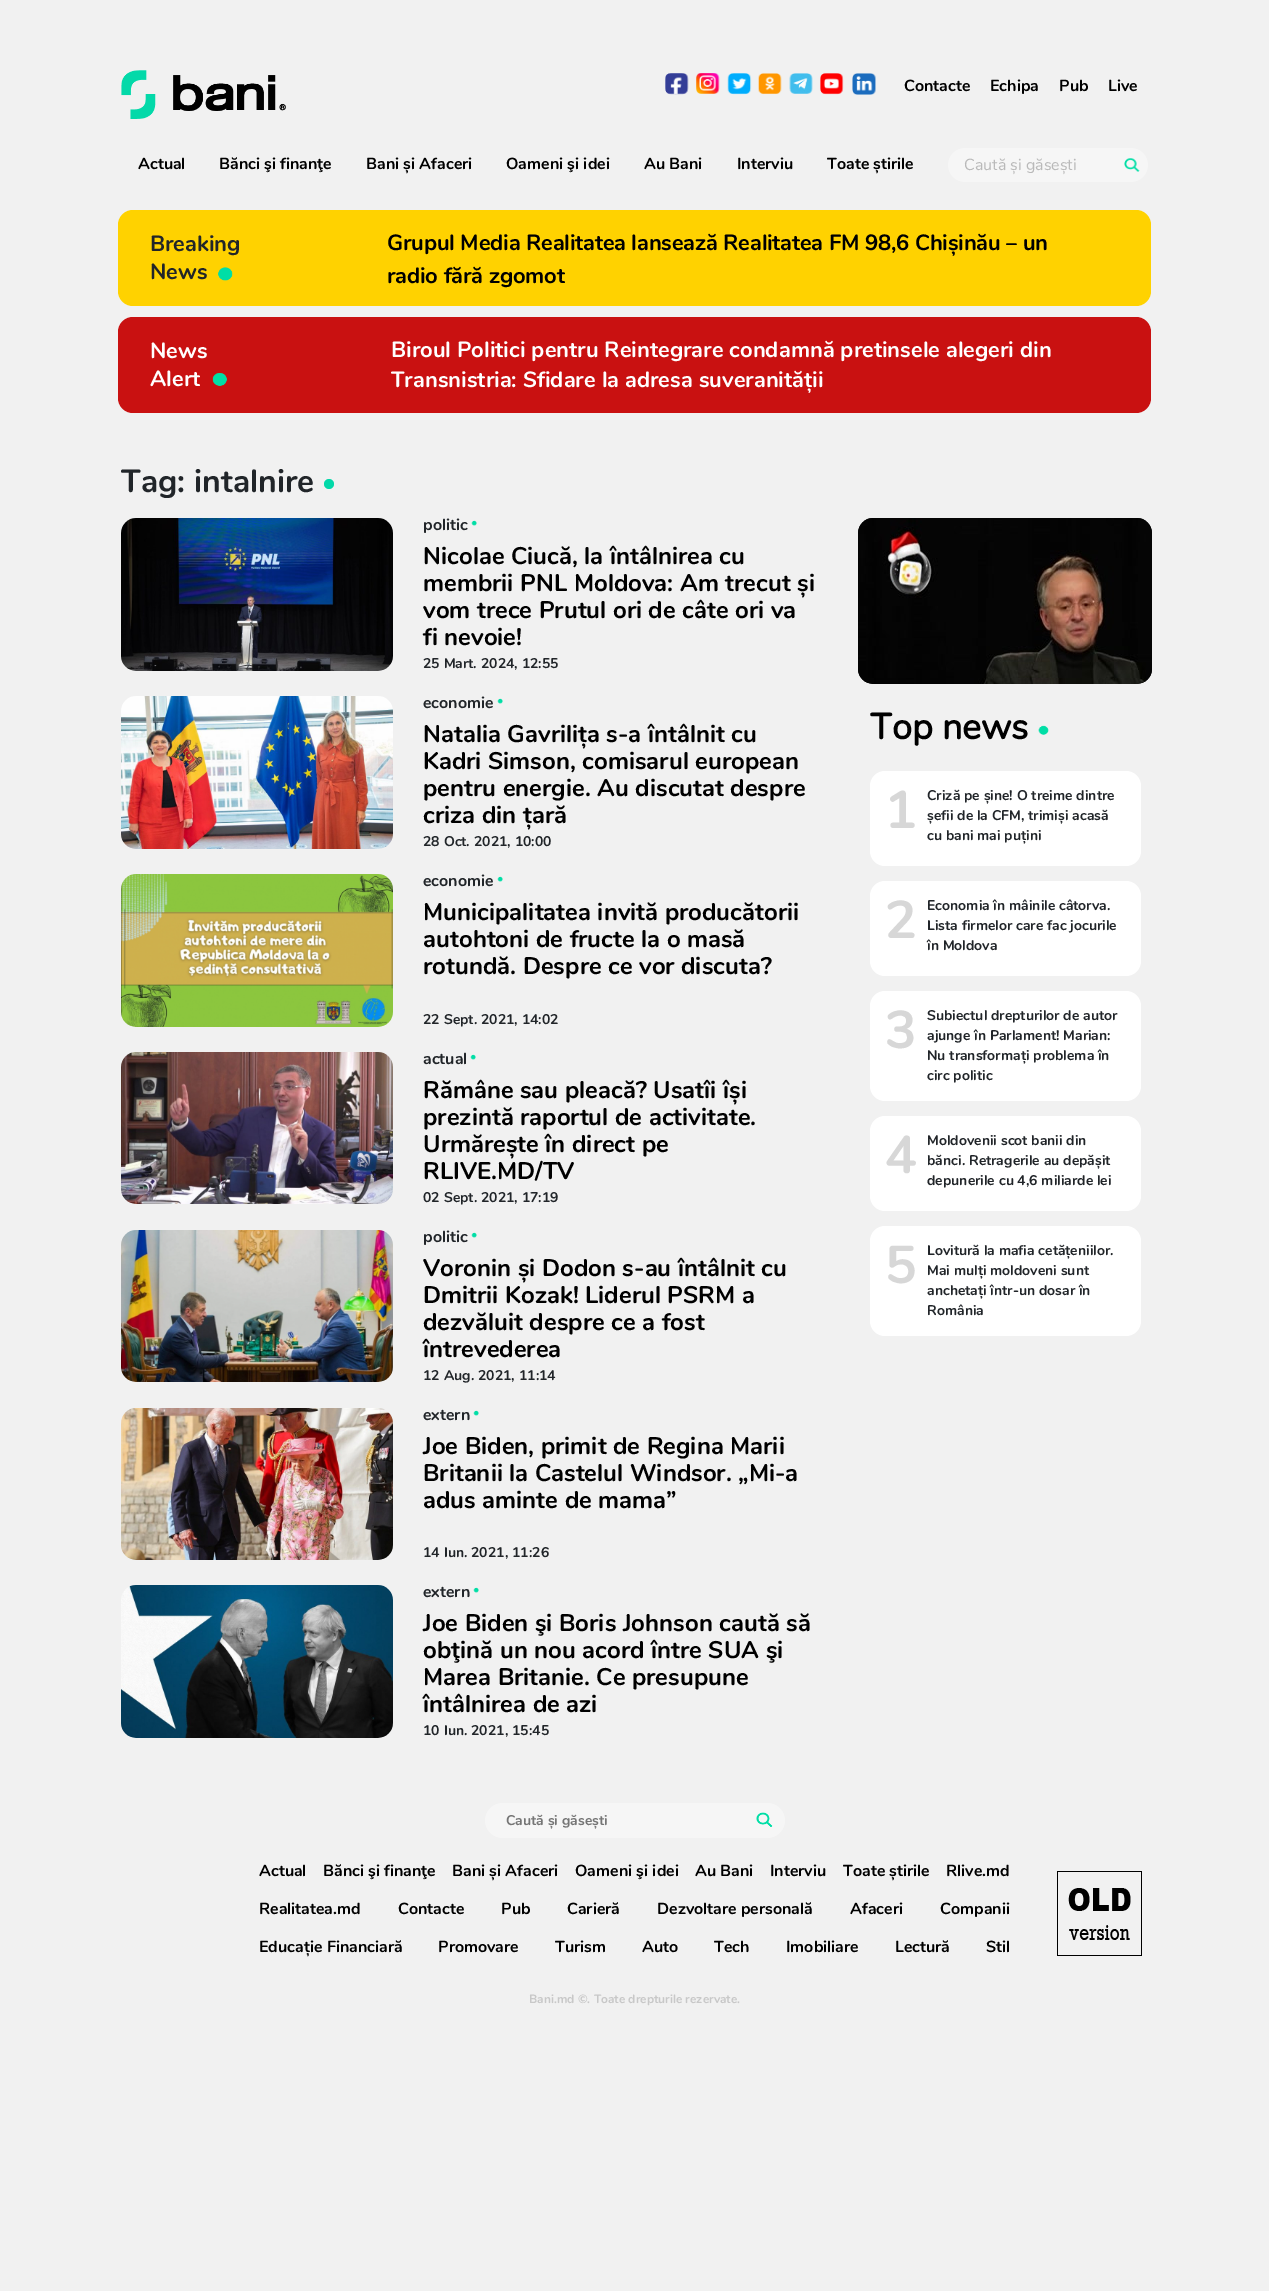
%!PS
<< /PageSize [1269 2291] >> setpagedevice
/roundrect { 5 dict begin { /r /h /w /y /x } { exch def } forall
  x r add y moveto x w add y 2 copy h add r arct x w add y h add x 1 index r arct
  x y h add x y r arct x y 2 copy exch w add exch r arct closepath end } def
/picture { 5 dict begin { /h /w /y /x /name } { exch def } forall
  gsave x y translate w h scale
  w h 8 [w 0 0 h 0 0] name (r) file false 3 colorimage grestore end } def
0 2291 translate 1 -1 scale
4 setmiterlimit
0.945 setgray
0 0 1269 2291 rectfill
(img1.rgb) 121 70 165 49 picture
(img2.rgb) 665 73 24 22 picture
(img3.rgb) 696 73 24 21 picture
(img4.rgb) 727 73 25 22 picture
(img5.rgb) 758 73 24 22 picture
(img6.rgb) 789 73 24 21 picture
(img7.rgb) 820 73 24 22 picture
(img8.rgb) 852 73 24 22 picture
/Nunito-Bold [16 0 0 -16 0 0] selectfont
0 setgray
904 91 moveto (Contacte) show
990 91 moveto (Echipa) show
1059 91 moveto (Pub) show
1108 91 moveto (Live) show
138 169 moveto (Actual) show
219 169 moveto (Bănci şi finanţe) show
366 169 moveto (Bani și Afaceri) show
506 169 moveto (Oameni şi idei) show
644 169 moveto (Au Bani) show
737 169 moveto (Interviu) show
827 169 moveto (Toate știrile) show
0.965 setgray
948 148 200 34 17 roundrect fill
/Nunito-Regular [16 0 0 -16 0 0] selectfont
0.725 setgray
964 170 moveto (Caută și găsești) show
(img9.rgb) 1124 158 16 14 picture
1 0.824 0 setrgbcolor
118 210 1033 96 15 roundrect fill
/Nunito-Bold [22 0 0 -22 0 0] selectfont
0.129 0.145 0.161 setrgbcolor
150 251 moveto (Breaking) show
150 279 moveto (News) show
(img10.rgb) 218 267 15 14 picture
0 setgray
387 250 moveto -0.2 0 (Grupul Media Realitatea lansează Realitatea FM 98,6 Chișinău – un) ashow
387 283 moveto -0.2 0 (radio fără zgomot) ashow
0.788 0.067 0.067 setrgbcolor
118 317 1033 96 15 roundrect fill
1 setgray
150 358 moveto (News) show
150 386 moveto (Alert) show
(img11.rgb) 212 373 15 13 picture
391 357 moveto (Biroul Politici pentru Reintegrare condamnă pretinsele alegeri din) show
391 387 moveto (Transnistria: Sfidare la adresa suveranității) show
/Nunito-Bold [32 0 0 -32 0 0] selectfont
0.129 0.145 0.161 setrgbcolor
121 492 moveto (Tag: intalnire) show
0.012 0.851 0.663 setrgbcolor
newpath 329 484 5 0 360 arc closepath fill
(img12.rgb) 121 518 272 153 picture
/Nunito-Bold [16 0 0 -16 0 0] selectfont
0.129 0.145 0.161 setrgbcolor
423 530 moveto (politic) show
(img13.rgb) 471 520 6 6 picture
/Nunito-Bold [24 0 0 -24 0 0] selectfont
0 setgray
423 564 moveto (Nicolae Ciucă, la întâlnirea cu) show
423 591 moveto (membrii PNL Moldova: Am trecut și) show
423 618 moveto (vom trece Prutul ori de câte ori va) show
423 645 moveto (fi nevoie!) show
/Nunito-Bold [14 0 0 -14 0 0] selectfont
0.129 0.145 0.161 setrgbcolor
423 668 moveto (25 Mart. 2024, 12:55) show
(img14.rgb) 121 696 272 153 picture
/Nunito-Bold [16 0 0 -16 0 0] selectfont
423 708 moveto (economie) show
(img13.rgb) 497 698 6 6 picture
/Nunito-Bold [24 0 0 -24 0 0] selectfont
0 setgray
423 742 moveto (Natalia Gavrilița s-a întâlnit cu) show
423 769 moveto (Kadri Simson, comisarul european) show
423 796 moveto (pentru energie. Au discutat despre) show
423 823 moveto (criza din țară) show
/Nunito-Bold [14 0 0 -14 0 0] selectfont
0.129 0.145 0.161 setrgbcolor
423 846 moveto (28 Oct. 2021, 10:00) show
(img15.rgb) 121 874 272 153 picture
/Nunito-Bold [16 0 0 -16 0 0] selectfont
423 886 moveto (economie) show
(img13.rgb) 497 876 6 6 picture
/Nunito-Bold [24 0 0 -24 0 0] selectfont
0 setgray
423 920 moveto (Municipalitatea invită producătorii) show
423 947 moveto (autohtoni de fructe la o masă) show
423 974 moveto (rotundă. Despre ce vor discuta?) show
/Nunito-Bold [14 0 0 -14 0 0] selectfont
0.129 0.145 0.161 setrgbcolor
423 1024 moveto (22 Sept. 2021, 14:02) show
(img16.rgb) 121 1052 272 152 picture
/Nunito-Bold [16 0 0 -16 0 0] selectfont
423 1064 moveto (actual) show
(img13.rgb) 470 1054 6 6 picture
/Nunito-Bold [24 0 0 -24 0 0] selectfont
0 setgray
423 1098 moveto (Rămâne sau pleacă? Usatîi își) show
423 1125 moveto (prezintă raportul de activitate.) show
423 1152 moveto (Urmărește în direct pe) show
423 1179 moveto (RLIVE.MD/TV) show
/Nunito-Bold [14 0 0 -14 0 0] selectfont
0.129 0.145 0.161 setrgbcolor
423 1202 moveto (02 Sept. 2021, 17:19) show
(img17.rgb) 121 1230 272 152 picture
/Nunito-Bold [16 0 0 -16 0 0] selectfont
423 1242 moveto (politic) show
(img13.rgb) 471 1232 6 6 picture
/Nunito-Bold [24 0 0 -24 0 0] selectfont
0 setgray
423 1276 moveto (Voronin și Dodon s-au întâlnit cu) show
423 1303 moveto (Dmitrii Kozak! Liderul PSRM a) show
423 1330 moveto (dezvăluit despre ce a fost) show
423 1357 moveto (întrevederea) show
/Nunito-Bold [14 0 0 -14 0 0] selectfont
0.129 0.145 0.161 setrgbcolor
423 1380 moveto (12 Aug. 2021, 11:14) show
(img18.rgb) 121 1408 272 152 picture
/Nunito-Bold [16 0 0 -16 0 0] selectfont
423 1420 moveto (extern) show
(img13.rgb) 473 1410 6 6 picture
/Nunito-Bold [24 0 0 -24 0 0] selectfont
0 setgray
423 1454 moveto (Joe Biden, primit de Regina Marii) show
423 1481 moveto (Britanii la Castelul Windsor. „Mi-a) show
423 1508 moveto (adus aminte de mama”) show
/Nunito-Bold [14 0 0 -14 0 0] selectfont
0.129 0.145 0.161 setrgbcolor
423 1557 moveto (14 Iun. 2021, 11:26) show
(img19.rgb) 121 1585 272 153 picture
/Nunito-Bold [16 0 0 -16 0 0] selectfont
423 1597 moveto (extern) show
(img13.rgb) 473 1587 6 6 picture
/Nunito-Bold [24 0 0 -24 0 0] selectfont
0 setgray
423 1631 moveto (Joe Biden şi Boris Johnson caută să) show
423 1658 moveto (obţină un nou acord între SUA şi) show
423 1685 moveto (Marea Britanie. Ce presupune) show
423 1712 moveto (întâlnirea de azi) show
/Nunito-Bold [14 0 0 -14 0 0] selectfont
0.129 0.145 0.161 setrgbcolor
423 1735 moveto (10 Iun. 2021, 15:45) show
(img20.rgb) 858 518 294 166 picture
/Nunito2-Bold [36 0 0 -36 0 0] selectfont
0 setgray
870 739 moveto (Top news) show
(img21.rgb) 1038 725 11 10 picture
1 setgray
870 771 271 95 15 roundrect fill
/Nunito-Bold [53 0 0 -53 0 0] selectfont
0.843 setgray
885 828 moveto (1) show
/Nunito-Bold [14 0 0 -14 0 0] selectfont
0.129 0.145 0.161 setrgbcolor
927 800 moveto (Criză pe șine! O treime dintre) show
927 820 moveto (șefii de la CFM, trimiși acasă) show
927 840 moveto (cu bani mai puțini) show
1 setgray
870 881 271 95 15 roundrect fill
/Nunito-Bold [53 0 0 -53 0 0] selectfont
0.843 setgray
885 938 moveto (2) show
/Nunito-Bold [14 0 0 -14 0 0] selectfont
0.129 0.145 0.161 setrgbcolor
927 910 moveto (Economia în mâinile câtorva.) show
927 930 moveto (Lista firmelor care fac jocurile) show
927 950 moveto (în Moldova) show
1 setgray
870 991 271 110 15 roundrect fill
/Nunito-Bold [53 0 0 -53 0 0] selectfont
0.843 setgray
885 1048 moveto (3) show
/Nunito-Bold [14 0 0 -14 0 0] selectfont
0.129 0.145 0.161 setrgbcolor
927 1020 moveto (Subiectul drepturilor de autor) show
927 1040 moveto (ajunge în Parlament! Marian:) show
927 1060 moveto (Nu transformați problema în) show
927 1080 moveto (circ politic) show
1 setgray
870 1116 271 95 15 roundrect fill
/Nunito-Bold [53 0 0 -53 0 0] selectfont
0.843 setgray
885 1173 moveto (4) show
/Nunito-Bold [14 0 0 -14 0 0] selectfont
0.129 0.145 0.161 setrgbcolor
927 1145 moveto (Moldovenii scot banii din) show
927 1165 moveto (bănci. Retragerile au depășit) show
927 1185 moveto (depunerile cu 4,6 miliarde lei) show
1 setgray
870 1226 271 110 15 roundrect fill
/Nunito-Bold [53 0 0 -53 0 0] selectfont
0.843 setgray
885 1283 moveto (5) show
/Nunito-Bold [14 0 0 -14 0 0] selectfont
0.129 0.145 0.161 setrgbcolor
927 1255 moveto (Lovitură la mafia cetățeniilor.) show
927 1275 moveto (Mai mulți moldoveni sunt) show
927 1295 moveto (anchetați într-un dosar în) show
927 1315 moveto (România) show
0.965 setgray
485 1803 300 35 17.5 roundrect fill
0.459 setgray
506 1825 moveto (Caută și găsești) show
(img22.rgb) 756 1812 17 15 picture
/Nunito-Bold [16 0 0 -16 0 0] selectfont
0 setgray
259 1876 moveto (Actual) show
323 1876 moveto (Bănci şi finanţe) show
452 1876 moveto (Bani și Afaceri) show
575 1876 moveto (Oameni şi idei) show
695 1876 moveto (Au Bani) show
770 1876 moveto (Interviu) show
843 1876 moveto (Toate știrile) show
946 1876 moveto (Rlive.md) show
259 1914 moveto (Realitatea.md) show
398 1914 moveto (Contacte) show
501 1914 moveto (Pub) show
567 1914 moveto (Carieră) show
657 1914 moveto (Dezvoltare personală) show
850 1914 moveto (Afaceri) show
940 1914 moveto (Companii) show
259 1952 moveto (Educație Financiară) show
438 1952 moveto (Promovare) show
555 1952 moveto (Turism) show
642 1952 moveto (Auto) show
714 1952 moveto (Tech) show
786 1952 moveto (Imobiliare) show
895 1952 moveto (Lectură) show
986 1952 moveto (Stil) show
(img23.rgb) 1057 1871 85 85 picture
/Nunito-Bold [12 0 0 -12 0 0] selectfont
0.784 setgray
529 2003 moveto (Bani.md ©. Toate drepturile rezervate.) show
showpage
